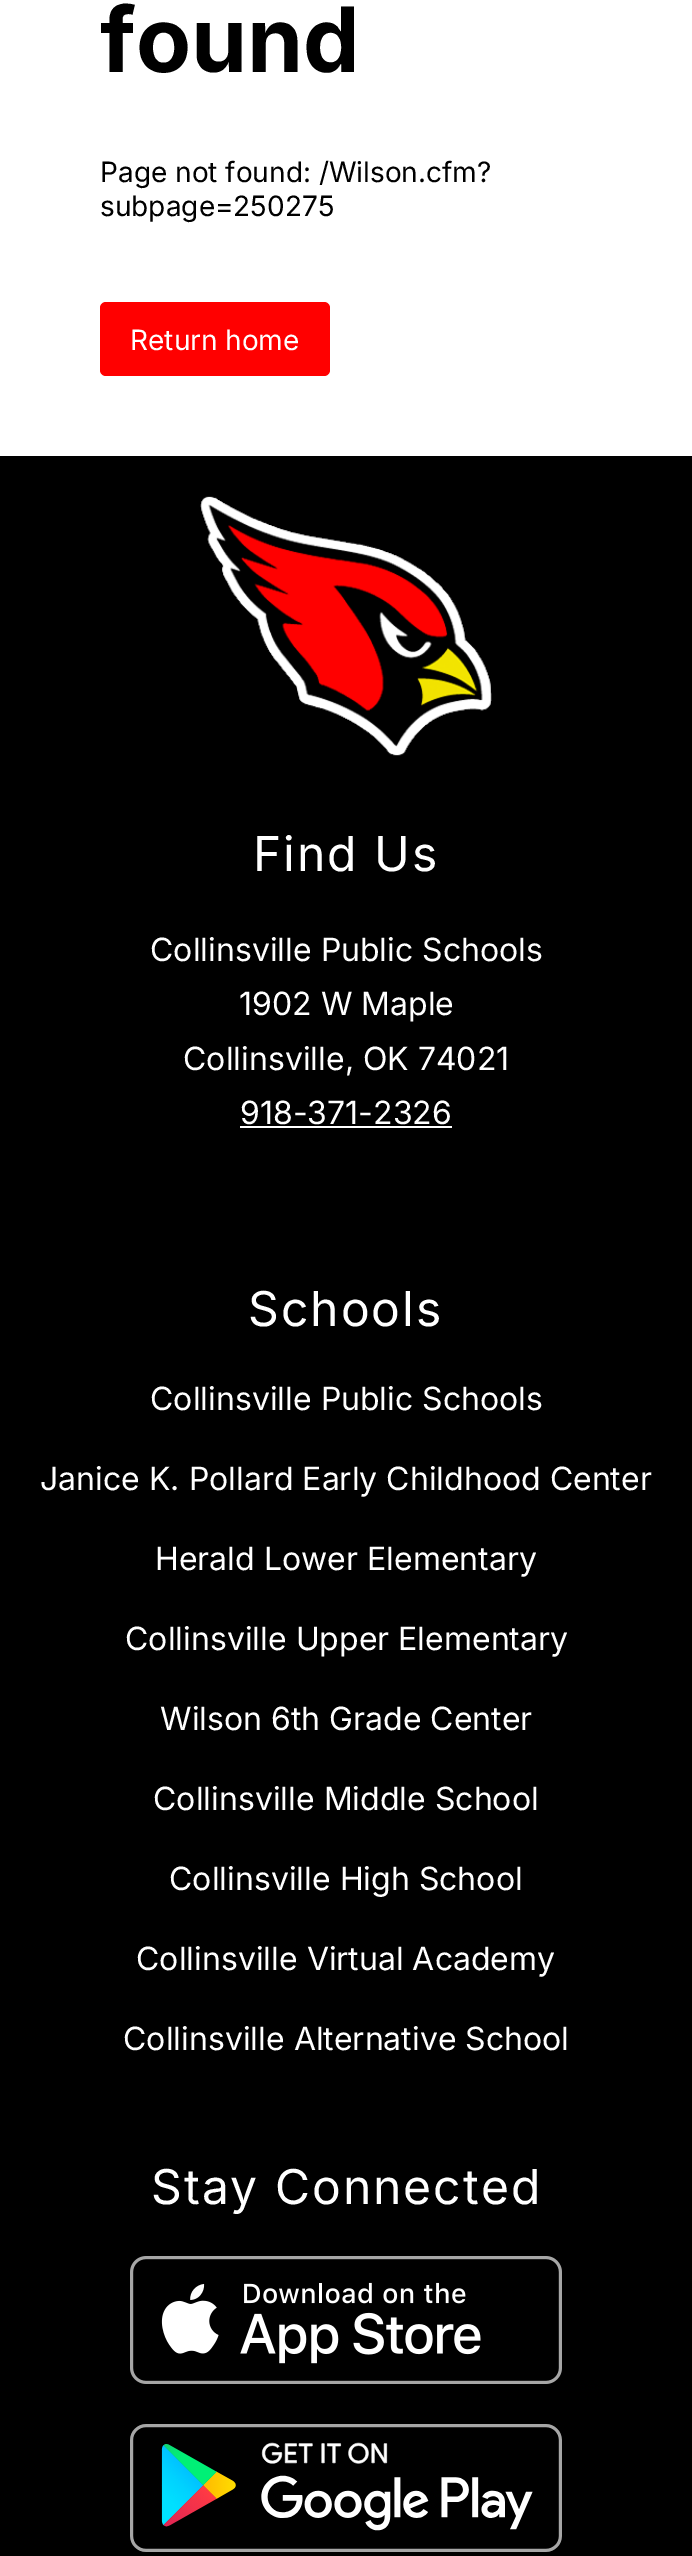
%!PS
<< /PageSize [692 2556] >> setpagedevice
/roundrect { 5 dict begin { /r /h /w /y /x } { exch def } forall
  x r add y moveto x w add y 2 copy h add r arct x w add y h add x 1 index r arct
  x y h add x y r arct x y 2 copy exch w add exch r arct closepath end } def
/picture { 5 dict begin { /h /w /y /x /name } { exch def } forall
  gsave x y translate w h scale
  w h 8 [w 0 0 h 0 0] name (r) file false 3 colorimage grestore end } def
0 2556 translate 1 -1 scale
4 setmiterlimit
1 setgray
0 0 692 2556 rectfill
/Inter-Bold [90 0 0 -90 0 0] selectfont
0 setgray
100 72 moveto (found) show
/Inter-Regular [28 0 0 -28 0 0] selectfont
100 182 moveto (Page not found: /Wilson.cfm?) show
100 216 moveto (subpage=250275) show
1 0 0 setrgbcolor
100 302 230 74 6 roundrect fill
1 setgray
130 350 moveto (Return home) show
0 setgray
0 456 692 2100 rectfill
(img1.rgb) 200 496 292 260 picture
/Inter-Regular [48 0 0 -48 0 0] selectfont
1 setgray
253 871 moveto 2 0 (Find Us) ashow
/Inter-Regular [32 0 0 -32 0 0] selectfont
150 961 moveto (Collinsville Public Schools) show
239 1015 moveto (1902 W Maple) show
183 1070 moveto (Collinsville, OK 74021) show
240 1124 moveto (918-371-2326) show
240 1126 212 2 rectfill
/Inter-Regular [48 0 0 -48 0 0] selectfont
248 1326 moveto 2 0 (Schools) ashow
/Inter-Regular [32 0 0 -32 0 0] selectfont
150 1410 moveto (Collinsville Public Schools) show
40 1490 moveto (Janice K. Pollard Early Childhood Center) show
155 1570 moveto (Herald Lower Elementary) show
125 1650 moveto (Collinsville Upper Elementary) show
160 1730 moveto (Wilson 6th Grade Center) show
153 1810 moveto (Collinsville Middle School) show
169 1890 moveto (Collinsville High School) show
136 1970 moveto (Collinsville Virtual Academy) show
123 2050 moveto (Collinsville Alternative School) show
/Inter-Regular [48 0 0 -48 0 0] selectfont
151 2204 moveto 2 0 (Stay Connected) ashow
(img2.rgb) 130 2256 432 128 picture
(img3.rgb) 130 2424 432 128 picture
showpage
